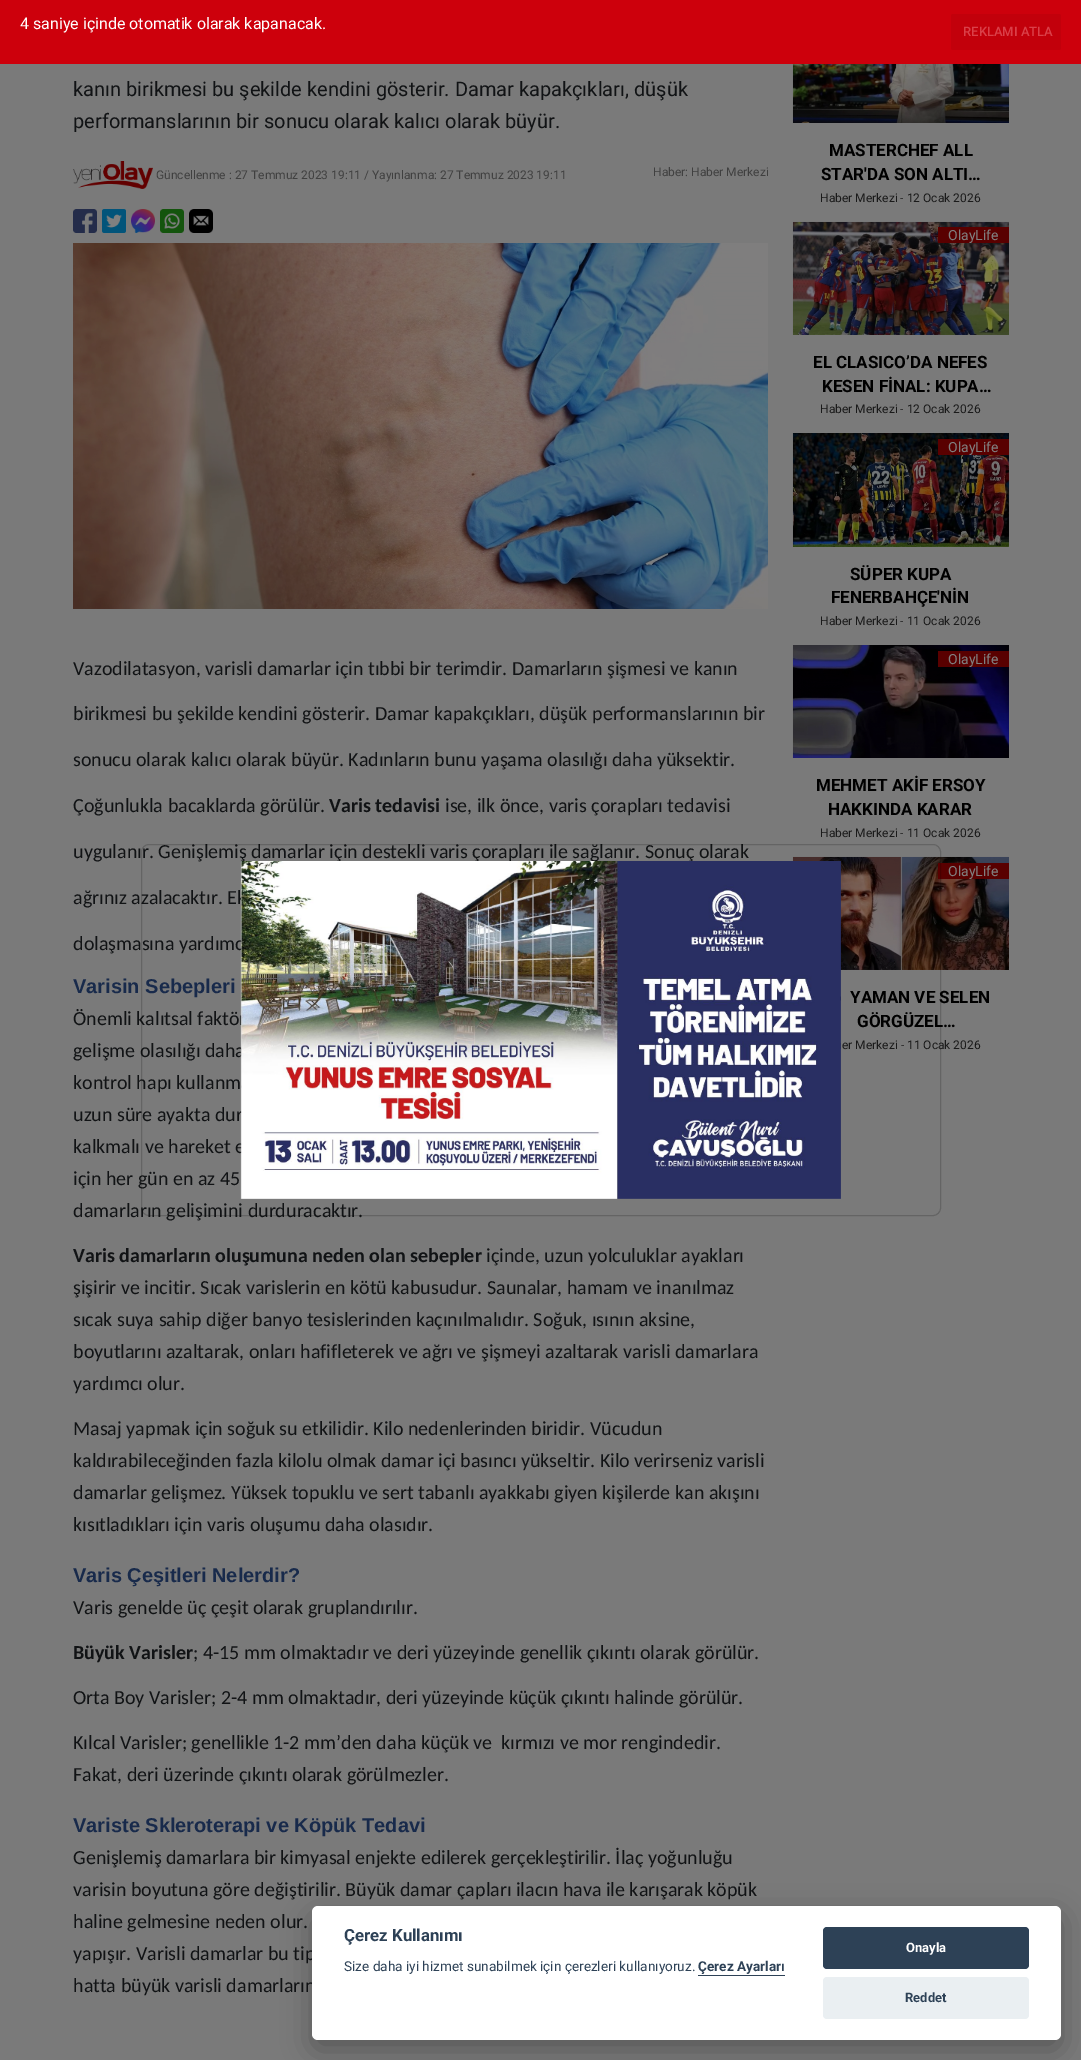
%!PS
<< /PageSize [1081 2060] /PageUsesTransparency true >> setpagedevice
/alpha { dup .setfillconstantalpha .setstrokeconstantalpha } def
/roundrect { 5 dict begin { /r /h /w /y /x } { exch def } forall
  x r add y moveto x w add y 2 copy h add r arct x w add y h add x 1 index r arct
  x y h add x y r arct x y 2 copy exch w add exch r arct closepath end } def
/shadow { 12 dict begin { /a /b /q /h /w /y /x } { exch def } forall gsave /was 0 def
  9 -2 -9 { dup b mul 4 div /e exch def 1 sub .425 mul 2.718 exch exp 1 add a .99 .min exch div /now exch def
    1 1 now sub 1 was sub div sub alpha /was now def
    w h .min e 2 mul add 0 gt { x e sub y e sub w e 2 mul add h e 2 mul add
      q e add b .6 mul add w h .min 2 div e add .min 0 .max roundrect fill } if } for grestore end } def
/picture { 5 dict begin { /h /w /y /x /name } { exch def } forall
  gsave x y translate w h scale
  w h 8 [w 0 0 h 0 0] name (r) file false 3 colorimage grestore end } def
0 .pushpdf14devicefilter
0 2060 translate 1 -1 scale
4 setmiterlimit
0.478 setgray
0 0 1081 2060 rectfill
/Carlito-Regular [20 0 0 -20 0 0] selectfont
0.067 0.075 0.082 setrgbcolor
73 858 moveto (uygulanır. Genişlemiş damarlar için destekli varis çorapları ile sağlanır. Sonuç olarak) show
73 904 moveto (ağrınız azalacaktır. Ek) show
73 950 moveto (dolaşmasına yardımc) show
/LiberationSans-Bold [20 0 0 -20 0 0] selectfont
0.094 0.165 0.294 setrgbcolor
73 993 moveto (Varisin Sebepleri) show
/Carlito-Regular [20 0 0 -20 0 0] selectfont
0.067 0.075 0.082 setrgbcolor
73 1025 moveto (Önemli kalıtsal faktö) show
73 1057 moveto (gelişme olasılığı daha) show
73 1089 moveto (kontrol hapı kullanm) show
73 1121 moveto (uzun süre ayakta dur) show
73 1153 moveto (kalkmalı ve hareket e) show
73 1185 moveto (için her gün en az 45) show
73 1217 moveto (damarların gelişimini durduracaktır.) show
(img13.rgb) 792 856 217 114 picture
0.349 0 0 setrgbcolor
938 863 71 16 rectfill
/Roboto-Bold [17 0 0 -17 0 0] selectfont
0 setgray
850 1003 moveto (YAMAN VE SELEN) show
857 1027 moveto (GÖRGÜZEL…) show
/Roboto-Regular [12 0 0 -12 0 0] selectfont
0.102 setgray
842 1049 moveto (er Merkezi - 11 Ocak 2026) show
0.18 alpha
0 setgray
141.5 844.5 799 371 7.5 roundrect stroke
1 alpha
0.804 0 0.047 setrgbcolor
0 0 1081 64 rectfill
/Roboto-Regular [16 0 0 -16 0 0] selectfont
1 setgray
20 29 moveto (4 saniye içinde otomatik olarak kapanacak.) show
0.761 0 0.043 setrgbcolor
951 14 110 36 2 roundrect fill
/Roboto-Medium [13 0 0 -13 0 0] selectfont
0.855 0.251 0.286 setrgbcolor
963 36 moveto (REKLAMI ATLA) show
(img1.rgb) 240 861 601 338 picture
/Roboto-Regular [20 0 0 -20 0 0] selectfont
0.067 0.075 0.082 setrgbcolor
73 96 moveto (kanın birikmesi bu şekilde kendini gösterir. Damar kapakçıkları, düşük) show
73 128 moveto (performanslarının bir sonucu olarak kalıcı olarak büyür.) show
(img2.rgb) 73 161 80 28 picture
/Roboto-Regular [12 0 0 -12 0 0] selectfont
0.251 setgray
156 179 moveto (Güncellenme : 27 Temmuz 2023 19:11 / Yayınlanma: 27 Temmuz 2023 19:11) show
653 176 moveto (Haber: Haber Merkezi) show
(img3.rgb) 73 209 24 24 picture
(img4.rgb) 102 209 24 24 picture
(img5.rgb) 131 209 24 24 picture
(img6.rgb) 160 209 24 24 picture
(img7.rgb) 189 209 24 24 picture
(img8.rgb) 73 243 695 366 picture
/Carlito-Regular [20 0 0 -20 0 0] selectfont
0.067 0.075 0.082 setrgbcolor
73 675 moveto (Vazodilatasyon, varisli damarlar için tıbbi bir terimdir. Damarların şişmesi ve kanın) show
73 720 moveto (birikmesi bu şekilde kendini gösterir. Damar kapakçıkları, düşük performanslarının bir) show
73 766 moveto (sonucu olarak kalıcı olarak büyür. Kadınların bunu yaşama olasılığı daha yüksektir.) show
73 812 moveto (Çoğunlukla bacaklarda görülür.) show
/Carlito-Bold [20 0 0 -20 0 0] selectfont
329 812 moveto (Varis tedavisi) show
/Carlito-Regular [20 0 0 -20 0 0] selectfont
445 812 moveto (ise, ilk önce, varis çorapları tedavisi) show
/Carlito-Bold [20 0 0 -20 0 0] selectfont
73 1262 moveto (Varis damarların oluşumuna neden olan sebepler) show
/Carlito-Regular [20 0 0 -20 0 0] selectfont
486 1262 moveto (içinde, uzun yolculuklar ayakları) show
73 1294 moveto (şişirir ve incitir. Sıcak varislerin en kötü kabusudur. Saunalar, hamam ve inanılmaz) show
73 1326 moveto (sıcak suya sahip diğer banyo tesislerinden kaçınılmalıdır. Soğuk, ısının aksine,) show
73 1358 moveto (boyutlarını azaltarak, onları hafifleterek ve ağrı ve şişmeyi azaltarak varisli damarlara) show
73 1390 moveto (yardımcı olur.) show
73 1435 moveto (Masaj yapmak için soğuk su etkilidir. Kilo nedenlerinden biridir. Vücudun) show
73 1467 moveto (kaldırabileceğinden fazla kilolu olmak damar içi basıncı yükseltir. Kilo verirseniz varisli) show
73 1499 moveto (damarlar gelişmez. Yüksek topuklu ve sert tabanlı ayakkabı giyen kişilerde kan akışını) show
73 1531 moveto (kısıtladıkları için varis oluşumu daha olasıdır.) show
/LiberationSans-Bold [20 0 0 -20 0 0] selectfont
0.094 0.165 0.294 setrgbcolor
73 1582 moveto (Varis Çeşitleri Nelerdir?) show
/Carlito-Regular [20 0 0 -20 0 0] selectfont
0.067 0.075 0.082 setrgbcolor
73 1614 moveto (Varis genelde üç çeşit olarak gruplandırılır.) show
/Carlito-Bold [20 0 0 -20 0 0] selectfont
73 1659 moveto (Büyük Varisler) show
/Carlito-Regular [20 0 0 -20 0 0] selectfont
193 1659 moveto (; 4-15 mm olmaktadır ve deri yüzeyinde genellik çıkıntı olarak görülür.) show
73 1704 moveto (Orta Boy Varisler; 2-4 mm olmaktadır, deri yüzeyinde küçük çıkıntı halinde görülür.) show
73 1749 moveto (Kılcal Varisler; genellikle 1-2 mm’den daha küçük ve  kırmızı ve mor rengindedir.) show
73 1781 moveto (Fakat, deri üzerinde çıkıntı olarak görülmezler.) show
/LiberationSans-Bold [20 0 0 -20 0 0] selectfont
0.094 0.165 0.294 setrgbcolor
73 1832 moveto (Variste Skleroterapi ve Köpük Tedavi) show
/Carlito-Regular [20 0 0 -20 0 0] selectfont
0.067 0.075 0.082 setrgbcolor
73 1864 moveto (Genişlemiş damarlara bir kimyasal enjekte edilerek gerçekleştirilir. İlaç yoğunluğu) show
73 1896 moveto (varisin boyutuna göre değiştirilir. Büyük damar çapları ilacın hava ile karışarak köpük) show
73 1928 moveto (haline gelmesine neden olur.) show
73 1960 moveto (yapışır. Varisli damarlar bu tip) show
73 1992 moveto (hatta büyük varisli damarların) show
(img9.rgb) 792 64 217 59 picture
/Roboto-Bold [17 0 0 -17 0 0] selectfont
0 setgray
829 156 moveto (MASTERCHEF ALL) show
821 180 moveto (STAR'DA SON ALTI…) show
/Roboto-Regular [12 0 0 -12 0 0] selectfont
0.102 setgray
820 202 moveto (Haber Merkezi - 12 Ocak 2026) show
(img10.rgb) 792 221 217 114 picture
0.349 0 0 setrgbcolor
938 227 71 16 rectfill
/Roboto-Regular [14 0 0 -14 0 0] selectfont
0.502 setgray
948 240 moveto (OlayLife) show
/Roboto-Bold [17 0 0 -17 0 0] selectfont
0 setgray
813 368 moveto (EL CLASICO’DA NEFES) show
822 392 moveto (KESEN FİNAL: KUPA…) show
/Roboto-Regular [12 0 0 -12 0 0] selectfont
0.102 setgray
820 413 moveto (Haber Merkezi - 12 Ocak 2026) show
(img11.rgb) 792 433 217 114 picture
0.349 0 0 setrgbcolor
938 439 71 16 rectfill
/Roboto-Regular [14 0 0 -14 0 0] selectfont
0.502 setgray
948 452 moveto (OlayLife) show
/Roboto-Bold [17 0 0 -17 0 0] selectfont
0 setgray
850 580 moveto (SÜPER KUPA) show
831 603 moveto (FENERBAHÇE'NİN) show
/Roboto-Regular [12 0 0 -12 0 0] selectfont
0.102 setgray
820 625 moveto (Haber Merkezi - 11 Ocak 2026) show
(img12.rgb) 792 645 217 113 picture
0.349 0 0 setrgbcolor
938 651 71 16 rectfill
/Roboto-Regular [14 0 0 -14 0 0] selectfont
0.502 setgray
948 664 moveto (OlayLife) show
/Roboto-Bold [17 0 0 -17 0 0] selectfont
0 setgray
816 791 moveto (MEHMET AKİF ERSOY) show
828 815 moveto (HAKKINDA KARAR) show
/Roboto-Regular [12 0 0 -12 0 0] selectfont
0.102 setgray
820 837 moveto (Haber Merkezi - 11 Ocak 2026) show
/Roboto-Regular [14 0 0 -14 0 0] selectfont
0.502 setgray
948 876 moveto (OlayLife) show
0.008 0.008 0.012 setrgbcolor
312 1916 749 134 6 15 0.28 shadow
1 setgray
312 1906 749 134 6 roundrect fill
/Roboto-Bold [16.75 0 0 -16.75 0 0] selectfont
0.176 0.255 0.337 setrgbcolor
344 1941 moveto (Çerez Kullanımı) show
/Roboto-Regular [13.6 0 0 -13.6 0 0] selectfont
344 1971 moveto (Size daha iyi hizmet sunabilmek için çerezleri kullanıyoruz.) show
/Roboto-Bold [13.6 0 0 -13.6 0 0] selectfont
698 1971 moveto (Çerez Ayarları) show
698 1975 87 1 rectfill
823 1927 206 42 4 roundrect fill
/Roboto-Bold [13 0 0 -13 0 0] selectfont
1 setgray
906 1952 moveto (Onayla) show
0.918 0.937 0.949 setrgbcolor
823 1977 206 42 4 roundrect fill
0.176 0.255 0.337 setrgbcolor
905 2002 moveto (Reddet) show
.poppdf14devicefilter showpage
